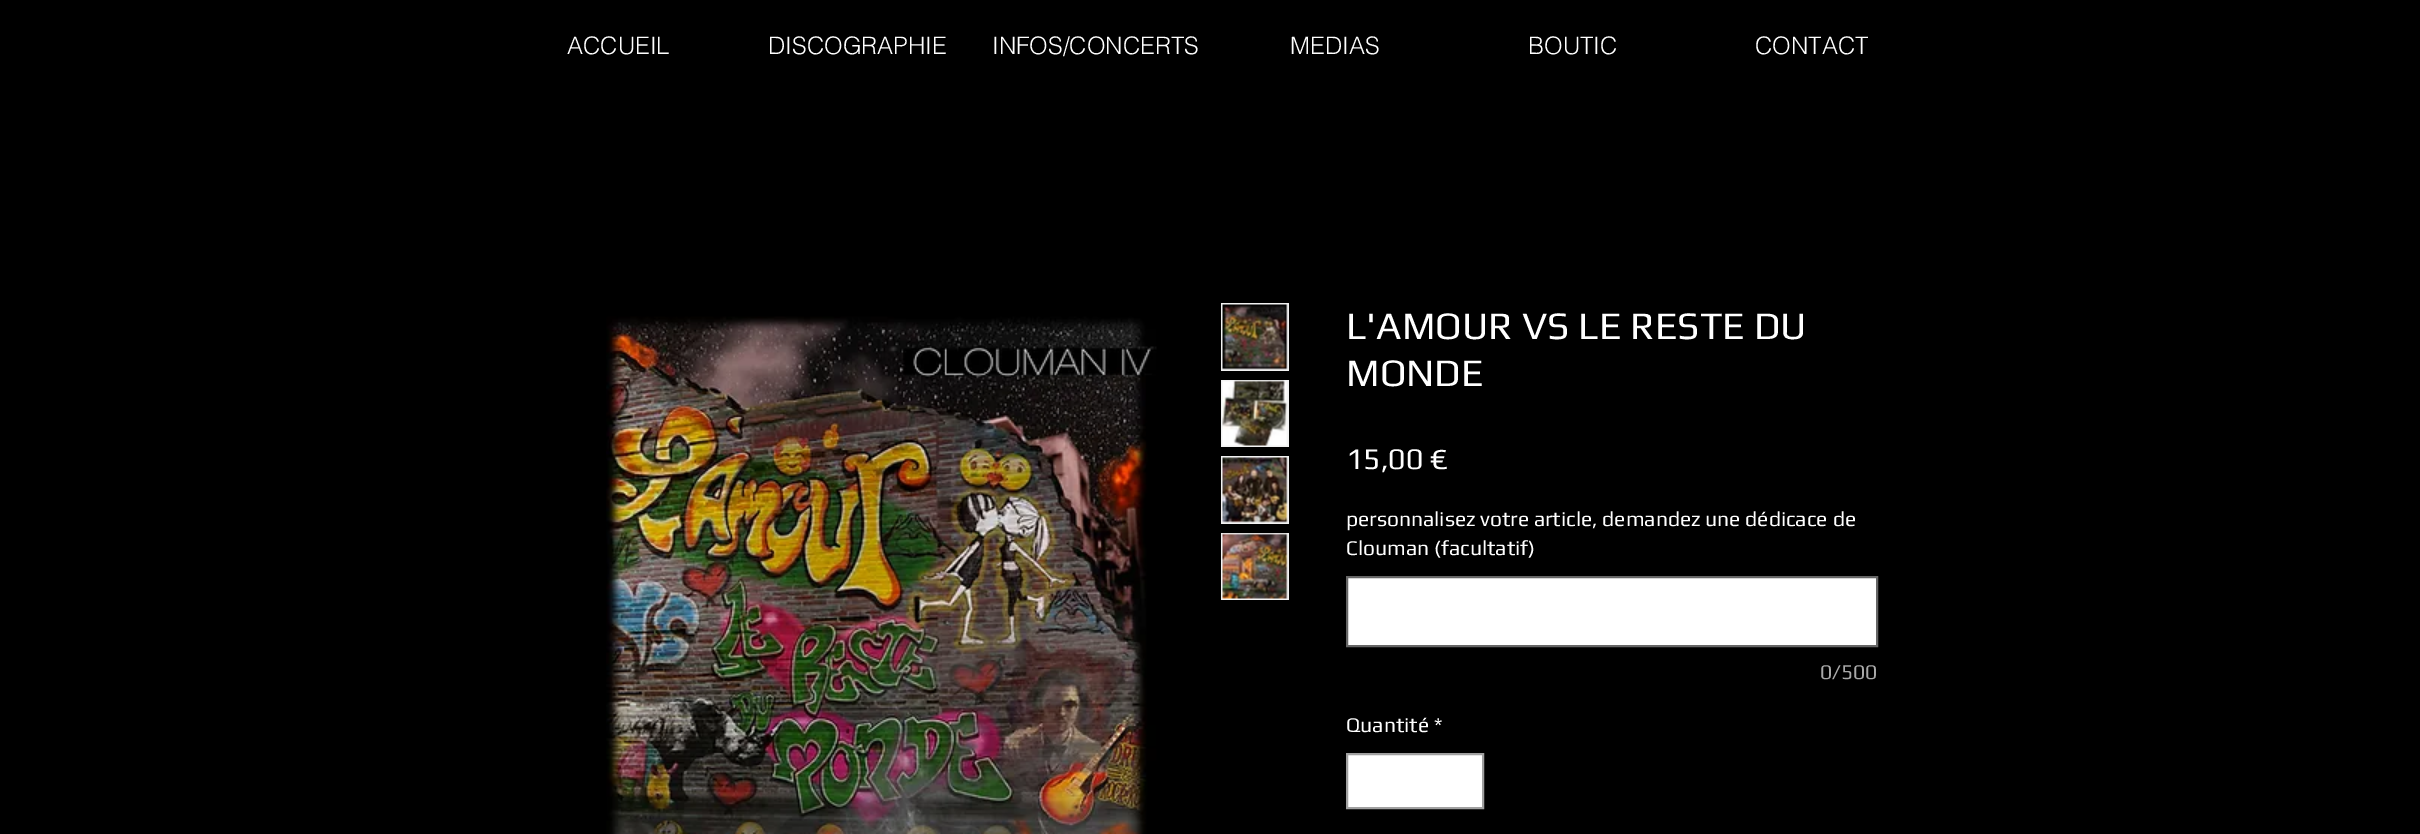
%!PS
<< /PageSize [2420 834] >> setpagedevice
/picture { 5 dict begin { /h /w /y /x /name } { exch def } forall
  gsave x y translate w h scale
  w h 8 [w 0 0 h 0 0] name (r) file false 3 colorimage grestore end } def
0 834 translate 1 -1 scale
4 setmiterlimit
0 setgray
0 0 2420 834 rectfill
/helvetica-Light [24 0 0 -24 0 0] selectfont
1 setgray
567 54 moveto (ACCUEIL) show
768 54 moveto (DISCOGRAPHIE) show
992 54 moveto (INFOS/CONCERTS) show
1290 54 moveto (MEDIAS) show
1528 54 moveto (BOUTIC) show
1755 54 moveto (CONTACT) show
(img1.rgb) 606 316 551 518 picture
0.949 setgray
1221 303 68 68 rectfill
(img2.rgb) 1222 304 66 66 picture
1221 380 68 67 rectfill
(img3.rgb) 1222 380 66 66 picture
1221 456 68 68 rectfill
(img4.rgb) 1222 457 66 66 picture
1221 533 68 67 rectfill
(img5.rgb) 1222 533 66 66 picture
/Play-Regular [39 0 0 -39 0 0] selectfont
1 setgray
1346 339 moveto (L'AMOUR VS LE RESTE DU) show
1346 386 moveto (MONDE) show
/Play-Regular [30 0 0 -30 0 0] selectfont
1346 469 moveto (15,00 €) show
/Play-Regular [21 0 0 -21 0 0] selectfont
1346 526 moveto (personnalisez votre article, demandez une dédicace de) show
1346 555 moveto (Clouman \(facultatif\)) show
newpath 1347 577 moveto 1877 577 lineto 1877 646 lineto 1347 646 lineto closepath gsave fill grestore
0.4 setgray
2 setlinewidth
stroke
0.659 setgray
1820 679 moveto (0/500) show
1 setgray
1346 732 moveto (Quantité) show
1434 732 moveto (*) show
newpath 1347 754 moveto 1483 754 lineto 1483 808 lineto 1347 808 lineto closepath gsave fill grestore
0.627 setgray
stroke
showpage
